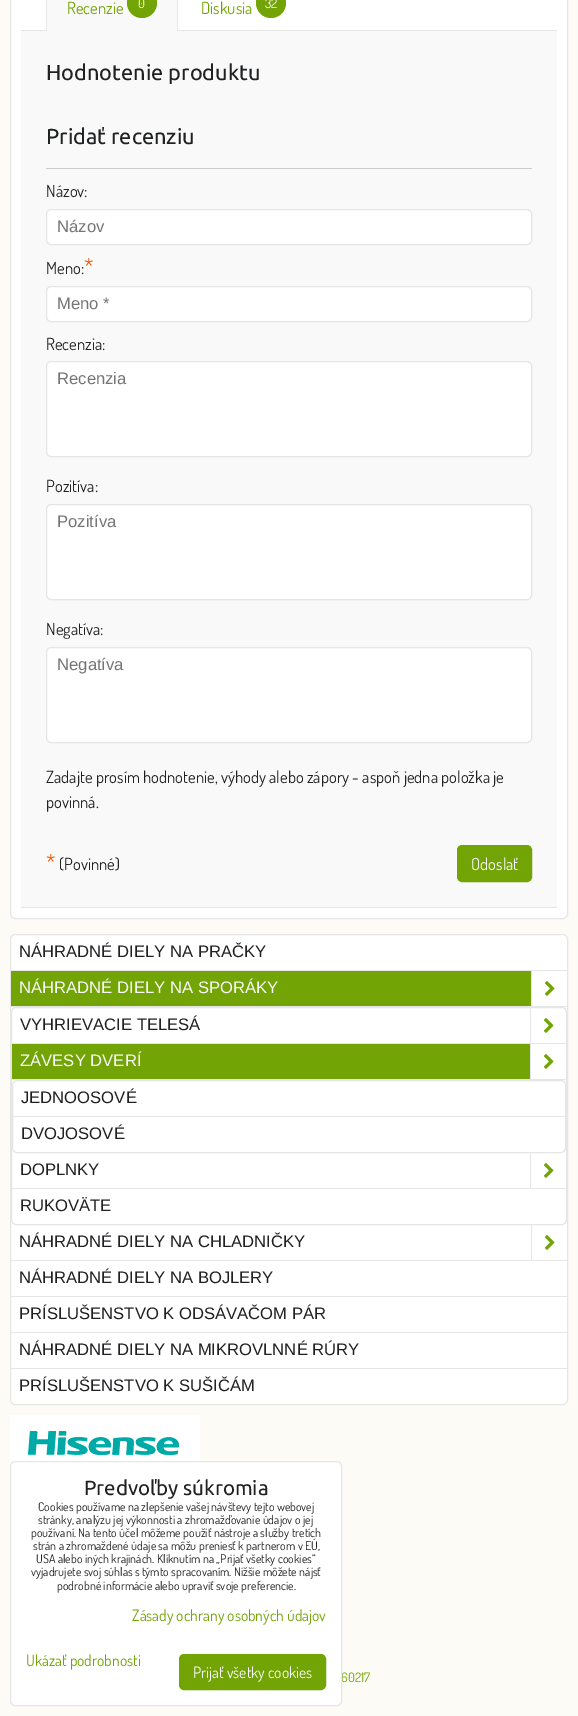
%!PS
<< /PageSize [578 1716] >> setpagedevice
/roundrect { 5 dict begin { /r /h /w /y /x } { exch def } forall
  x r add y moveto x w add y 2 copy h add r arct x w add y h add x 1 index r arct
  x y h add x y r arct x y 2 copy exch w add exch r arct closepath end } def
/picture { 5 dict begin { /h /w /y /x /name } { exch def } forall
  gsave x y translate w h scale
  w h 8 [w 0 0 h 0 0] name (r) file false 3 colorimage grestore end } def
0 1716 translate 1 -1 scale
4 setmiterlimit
0.988 0.984 0.965 setrgbcolor
0 0 578 1716 rectfill
1 setgray
10.5 -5.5 557 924 4.5 roundrect gsave fill grestore
0.902 setgray
stroke
21 30 536 1 rectfill
0.976 setgray
47 0 130 31 rectfill
0.902 setgray
newpath 51 -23 moveto 173 -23 lineto 176 -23 178 -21 178 -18 curveto 178 31 lineto 46 31 lineto 46 -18 lineto 46 -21 48 -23 51 -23 curveto closepath 51 -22 moveto 173 -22 lineto 175 -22 177 -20 177 -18 curveto 177 31 lineto 47 31 lineto 47 -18 lineto 47 -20 49 -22 51 -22 curveto closepath eofill
/Dosis-Regular [16.65 0 0 -16.65 0 0] selectfont
0.447 0.643 0.02 setrgbcolor
67 14 moveto (Recenzie) show
newpath 142 3 15 0 360 arc closepath fill
/Dosis-Regular [13 0 0 -13 0 0] selectfont
0.976 setgray
138 8 moveto (0) show
/Dosis-Regular [16.65 0 0 -16.65 0 0] selectfont
0.447 0.643 0.02 setrgbcolor
201 14 moveto (Diskusia) show
newpath 271 3 15 0 360 arc closepath fill
/Dosis-Regular [13 0 0 -13 0 0] selectfont
0.976 setgray
265 8 moveto (32) show
21 31 536 876 rectfill
0.902 setgray
21 907 536 1 rectfill
/Ubuntu-Regular [21.75 0 0 -21.75 0 0] selectfont
0.125 0.129 0.137 setrgbcolor
46 80 moveto (Hodnotenie produktu) show
46 144 moveto (Pridať recenziu) show
0.8 setgray
46 168 486 1 rectfill
/Dosis-Regular [16.65 0 0 -16.65 0 0] selectfont
0.125 0.129 0.137 setrgbcolor
46 197 moveto (Názov:) show
1 setgray
46.5 209.5 485 35 4.5 roundrect gsave fill grestore
0.902 setgray
stroke
/LiberationSans-Regular [16.65 0 0 -16.65 0 0] selectfont
0.459 setgray
57 232 moveto (Názov) show
/Dosis-Regular [16.65 0 0 -16.65 0 0] selectfont
0.125 0.129 0.137 setrgbcolor
46 274 moveto (Meno:) show
/Dosis-Regular [22 0 0 -22 0 0] selectfont
0.941 0.369 0.059 setrgbcolor
84 274 moveto (*) show
1 setgray
46.5 286.5 485 35 4.5 roundrect gsave fill grestore
0.902 setgray
stroke
/LiberationSans-Regular [16.65 0 0 -16.65 0 0] selectfont
0.459 setgray
57 309 moveto (Meno *) show
/Dosis-Regular [16.65 0 0 -16.65 0 0] selectfont
0.125 0.129 0.137 setrgbcolor
46 350 moveto (Recenzia:) show
1 setgray
46.5 361.5 485 95 4.5 roundrect gsave fill grestore
0.902 setgray
stroke
/LiberationSans-Regular [16.65 0 0 -16.65 0 0] selectfont
0.459 setgray
57 384 moveto (Recenzia) show
/Dosis-Regular [16.65 0 0 -16.65 0 0] selectfont
0.125 0.129 0.137 setrgbcolor
46 492 moveto (Pozitíva:) show
1 setgray
46.5 504.5 485 95 4.5 roundrect gsave fill grestore
0.902 setgray
stroke
/LiberationSans-Regular [16.65 0 0 -16.65 0 0] selectfont
0.459 setgray
57 527 moveto (Pozitíva) show
/Dosis-Regular [16.65 0 0 -16.65 0 0] selectfont
0.125 0.129 0.137 setrgbcolor
46 635 moveto (Negatíva:) show
1 setgray
46.5 647.5 485 95 4.5 roundrect gsave fill grestore
0.902 setgray
stroke
/LiberationSans-Regular [16.65 0 0 -16.65 0 0] selectfont
0.459 setgray
57 670 moveto (Negatíva) show
/Dosis-Regular [16.65 0 0 -16.65 0 0] selectfont
0.125 0.129 0.137 setrgbcolor
46 783 moveto (Zadajte prosím hodnotenie, výhody alebo zápory - aspoň jedna položka je) show
46 808 moveto (povinná.) show
/Dosis-Regular [22 0 0 -22 0 0] selectfont
0.941 0.369 0.059 setrgbcolor
46 870 moveto (*) show
/Dosis-Regular [16.65 0 0 -16.65 0 0] selectfont
0.125 0.129 0.137 setrgbcolor
59 870 moveto (\(Povinné\)) show
0.447 0.643 0.02 setrgbcolor
457.5 845.5 74 36 4.5 roundrect gsave fill grestore
stroke
0.976 setgray
471 870 moveto (Odoslať) show
1 setgray
10.5 934.5 557 470 4.5 roundrect gsave fill grestore
0.902 setgray
stroke
11 970 556 1 rectfill
/LiberationSans-Regular [16.65 0 0 -16.65 0 0] selectfont
0.125 0.129 0.137 setrgbcolor
19 957 moveto (NÁHRADNÉ DIELY NA PRAČKY) show
0.447 0.643 0.02 setrgbcolor
11 971 520 35 rectfill
0.902 setgray
11 1006 556 1 rectfill
0.976 setgray
19 993 moveto (NÁHRADNÉ DIELY NA SPORÁKY) show
0.902 setgray
531 971 1 35 rectfill
(img1.rgb) 544 981 11 15 picture
11.5 1007.5 555 217 4.5 roundrect stroke
12 1043 554 1 rectfill
0.125 0.129 0.137 setrgbcolor
20 1030 moveto (VYHRIEVACIE TELESÁ) show
0.902 setgray
530 1008 1 35 rectfill
(img1.rgb) 543 1018 11 15 picture
0.447 0.643 0.02 setrgbcolor
12 1044 518 35 rectfill
0.902 setgray
12 1079 554 1 rectfill
0.976 setgray
20 1066 moveto (ZÁVESY DVERÍ) show
0.902 setgray
530 1044 1 35 rectfill
(img1.rgb) 543 1054 11 15 picture
12.5 1080.5 553 72 4.5 roundrect stroke
13 1116 552 1 rectfill
0.125 0.129 0.137 setrgbcolor
21 1103 moveto (JEDNOOSOVÉ) show
21 1139 moveto (DVOJOSOVÉ) show
0.902 setgray
12 1188 554 1 rectfill
0.125 0.129 0.137 setrgbcolor
20 1175 moveto (DOPLNKY) show
0.902 setgray
530 1153 1 35 rectfill
(img1.rgb) 543 1163 11 15 picture
0.125 0.129 0.137 setrgbcolor
20 1211 moveto (RUKOVÄTE) show
0.902 setgray
11 1260 556 1 rectfill
0.125 0.129 0.137 setrgbcolor
19 1247 moveto (NÁHRADNÉ DIELY NA CHLADNIČKY) show
0.902 setgray
531 1225 1 35 rectfill
(img1.rgb) 544 1235 11 15 picture
11 1296 556 1 rectfill
0.125 0.129 0.137 setrgbcolor
19 1283 moveto (NÁHRADNÉ DIELY NA BOJLERY) show
0.902 setgray
11 1332 556 1 rectfill
0.125 0.129 0.137 setrgbcolor
19 1319 moveto (PRÍSLUŠENSTVO K ODSÁVAČOM PÁR) show
0.902 setgray
11 1368 556 1 rectfill
0.125 0.129 0.137 setrgbcolor
19 1355 moveto (NÁHRADNÉ DIELY NA MIKROVLNNÉ RÚRY) show
19 1391 moveto (PRÍSLUŠENSTVO K SUŠIČÁM) show
(img2.rgb) 10 1415 190 51 picture
/Dosis-Regular [13 0 0 -13 0 0] selectfont
0.447 0.643 0.02 setrgbcolor
341 1682 moveto (60217) show
1 setgray
10.5 1461.5 331 244 4.5 roundrect gsave fill grestore
0.902 setgray
stroke
/Ubuntu-Regular [20.5 0 0 -20.5 0 0] selectfont
0.125 0.129 0.137 setrgbcolor
84 1495 moveto (Predvoľby súkromia) show
/Dosis-Regular [12 0 0 -12 0 0] selectfont
38 1511 moveto (Cookies používame na zlepšenie vašej návštevy tejto webovej) show
38 1524 moveto (stránky, analýzu jej výkonnosti a zhromažďovanie údajov o jej) show
31 1537 moveto (používaní. Na tento účel môžeme použiť nástroje a služby tretích) show
33 1550 moveto (strán a zhromaždené údaje sa môžu preniesť k partnerom v EÚ,) show
36 1563 moveto (USA alebo iných krajinách. Kliknutím na „Prijať všetky cookies“) show
31 1576 moveto (vyjadrujete svoj súhlas s týmto spracovaním. Nižšie môžete nájsť) show
57 1590 moveto (podrobné informácie alebo upraviť svoje preferencie.) show
/Dosis-Regular [15.6 0 0 -15.6 0 0] selectfont
0.447 0.643 0.02 setrgbcolor
132 1621 moveto (Zásady ochrany osobných údajov) show
26 1666 moveto (Ukázať podrobnosti) show
179.5 1654.5 146 35 4.5 roundrect gsave fill grestore
stroke
0.976 setgray
193 1678 moveto (Prijať všetky cookies) show
showpage
